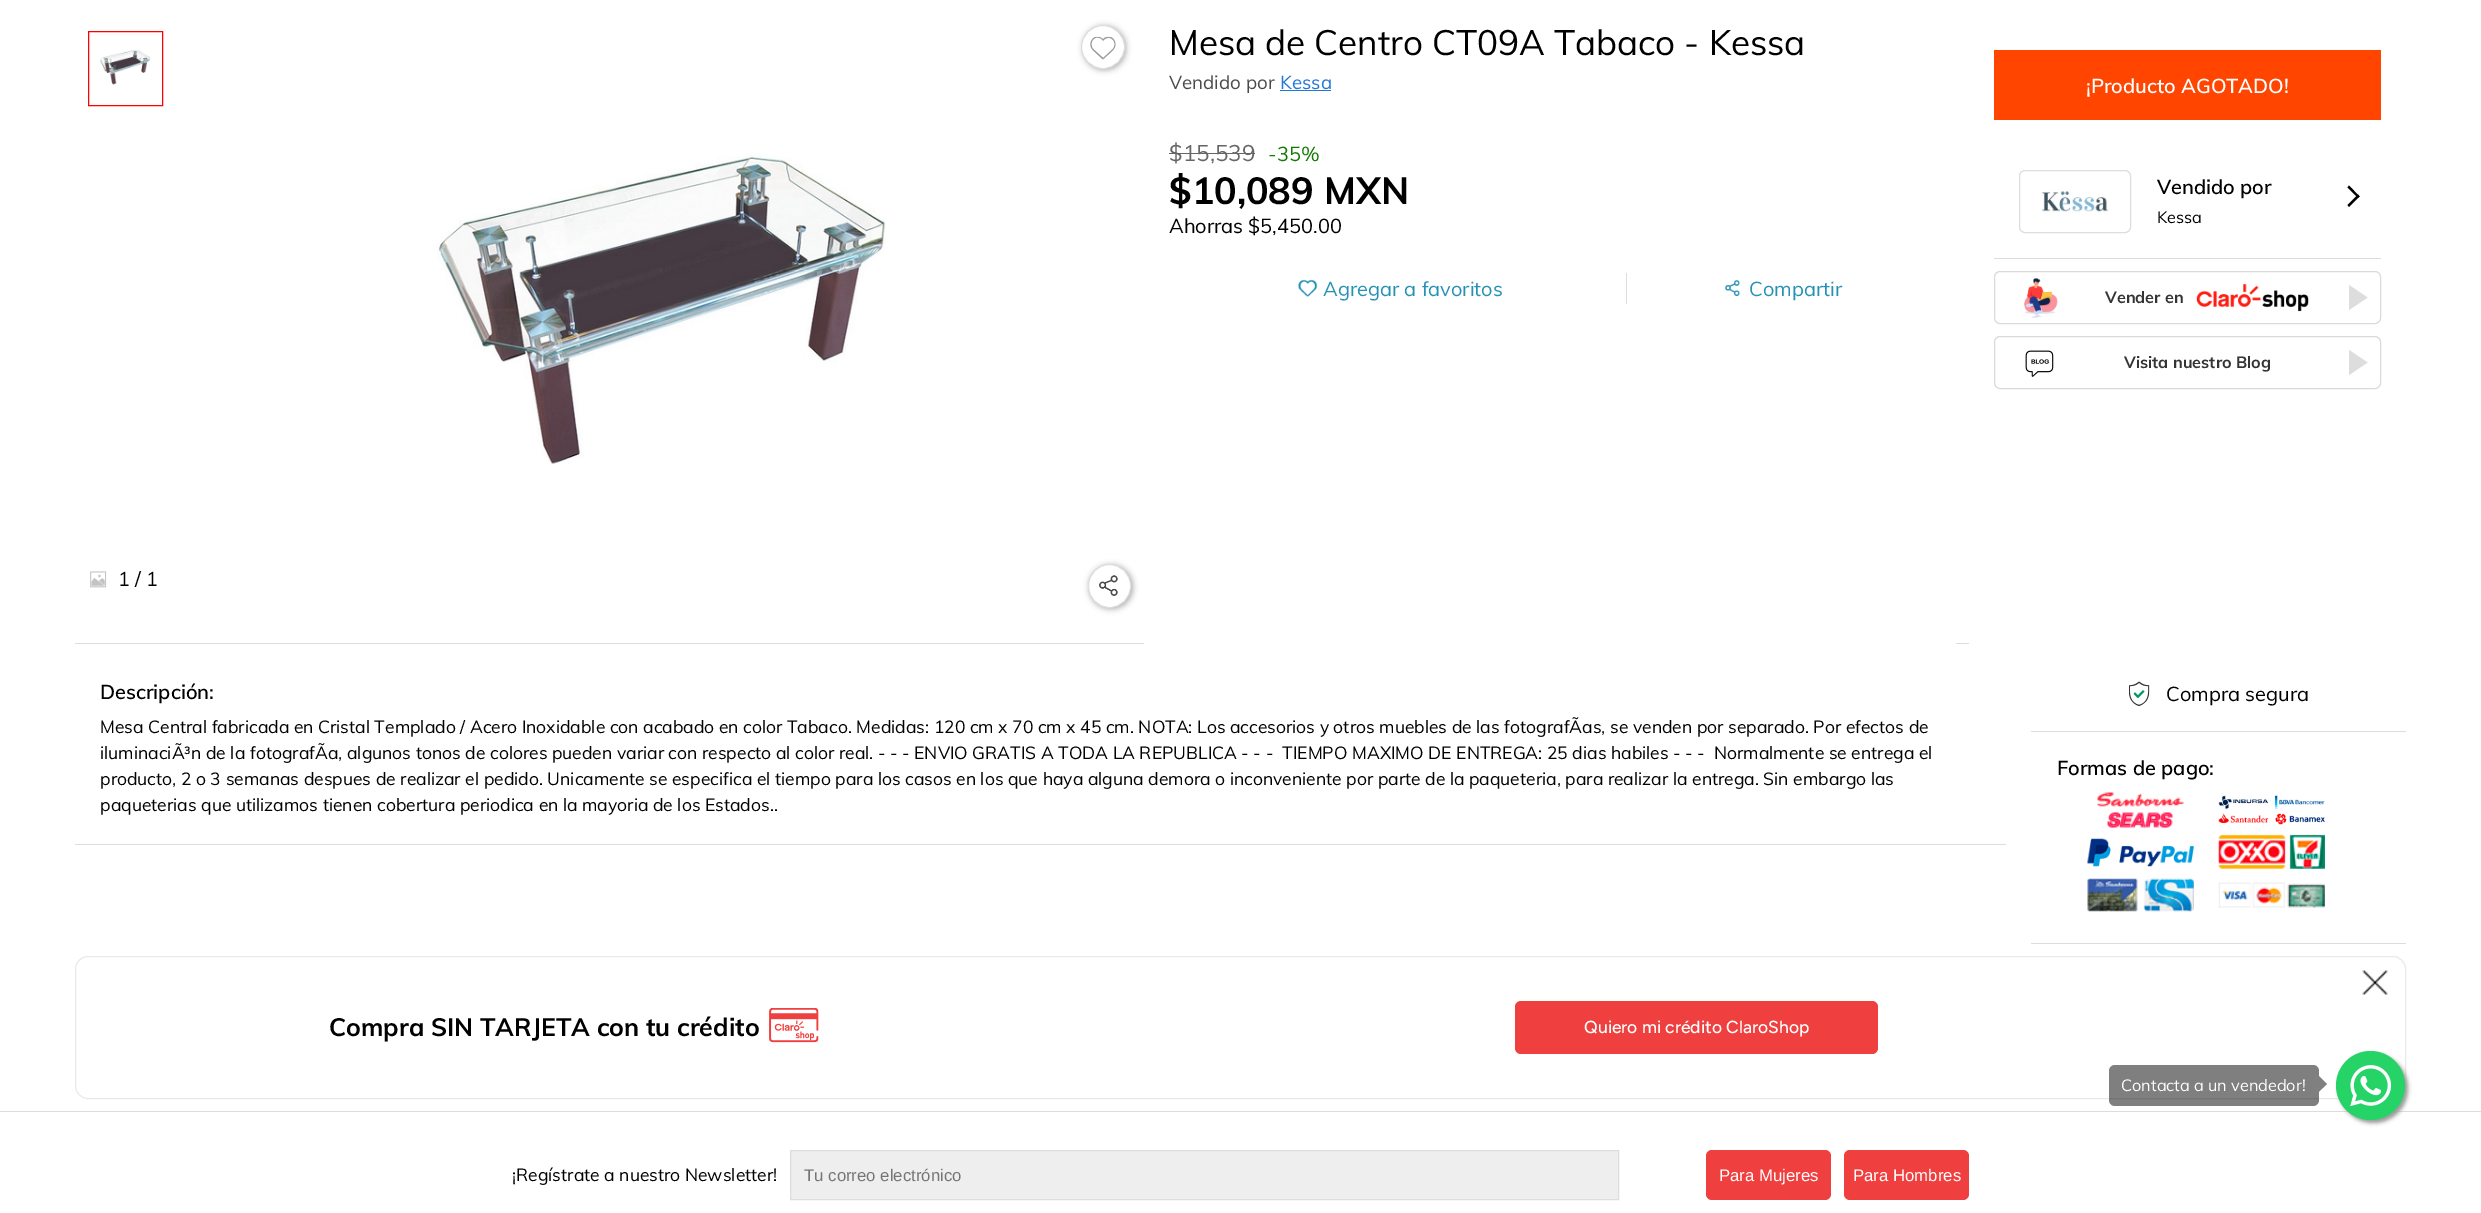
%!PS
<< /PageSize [2481 1213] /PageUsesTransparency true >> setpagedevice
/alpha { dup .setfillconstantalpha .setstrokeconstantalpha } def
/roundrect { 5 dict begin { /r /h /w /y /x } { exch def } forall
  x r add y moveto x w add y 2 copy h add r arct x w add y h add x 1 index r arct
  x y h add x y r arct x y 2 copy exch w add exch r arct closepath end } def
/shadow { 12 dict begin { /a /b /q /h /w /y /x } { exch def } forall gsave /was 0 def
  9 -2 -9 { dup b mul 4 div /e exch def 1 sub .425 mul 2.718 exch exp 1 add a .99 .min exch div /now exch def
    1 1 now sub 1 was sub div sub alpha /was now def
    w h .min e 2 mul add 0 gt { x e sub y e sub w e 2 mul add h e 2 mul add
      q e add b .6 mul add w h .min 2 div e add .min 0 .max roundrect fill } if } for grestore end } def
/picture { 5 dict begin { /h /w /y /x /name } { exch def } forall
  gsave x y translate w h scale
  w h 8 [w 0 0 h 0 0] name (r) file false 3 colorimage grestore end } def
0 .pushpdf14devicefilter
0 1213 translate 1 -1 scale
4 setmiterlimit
1 setgray
0 0 2481 1213 rectfill
0.867 setgray
75 643 1894 1 rectfill
1 setgray
1144 643 812 1 rectfill
/Muli-Regular [35 0 0 -35 0 0] selectfont
0 setgray
1169 55 moveto (Mesa de Centro CT09A Tabaco - Kessa) show
/Muli-Regular [18.75 0 0 -18.75 0 0] selectfont
0.29 setgray
1169 89 moveto (Vendido por) show
0.133 0.463 0.839 setrgbcolor
1280 89 moveto (Kessa) show
1280 90 51 1 rectfill
/Muli-Regular [22.5 0 0 -22.5 0 0] selectfont
0.4 setgray
1169 161 moveto ($15,539) show
1169 153 86 1 rectfill
/Muli-Regular [20 0 0 -20 0 0] selectfont
0.067 0.486 0 setrgbcolor
1268 161 moveto (-35%) show
/Muli-Bold [37.5 0 0 -37.5 0 0] selectfont
0 setgray
1169 204 moveto ($10,089 MXN) show
/Muli-Regular [20 0 0 -20 0 0] selectfont
1169 233 moveto (Ahorras $5,450.00) show
0.867 setgray
1626 273 1 31 rectfill
(img1.rgb) 1298 279 20 18 picture
0.145 0.569 0.706 setrgbcolor
1323 296 moveto (Agregar a favoritos) show
(img2.rgb) 1724 279 16 18 picture
1749 296 moveto (Compartir) show
1 0.271 0 setrgbcolor
1994 50 387 70 rectfill
/Muli-SemiBold [20 0 0 -20 0 0] selectfont
1 setgray
2086 93 moveto (¡Producto AGOTADO!) show
0.867 setgray
1994 258 387 1 rectfill
2019.5 170.5 111 62 5.5 roundrect stroke
(img3.rgb) 2041 191 68 21 picture
0 setgray
2157 194 moveto (Vendido por) show
/Muli-Regular [16.25 0 0 -16.25 0 0] selectfont
2157 223 moveto (Kessa) show
newpath 2349 185.5 moveto 2359.5 196.5 lineto 2358 198 lineto 2347.5 187.5 lineto closepath fill
newpath 2358 194.5 moveto 2359.5 196.5 lineto 2349 207 lineto 2347.5 205 lineto closepath fill
0.855 setgray
1994.5 271.5 386 52 5.5 roundrect stroke
(img4.rgb) 2024 278 34 40 picture
/Muli-Bold [16.25 0 0 -16.25 0 0] selectfont
0.204 setgray
2105 303 moveto (Vender en) show
(img5.rgb) 2196 284 113 28 picture
0.867 setgray
newpath 2349 310 moveto 2349 285 lineto 2367.5 297.5 lineto closepath fill
0.855 setgray
1994.5 336.5 386 52 5.5 roundrect stroke
(img6.rgb) 2025 350 29 27 picture
0.204 setgray
2124 368 moveto (Visita nuestro Blog) show
0.867 setgray
newpath 2349 375 moveto 2349 350 lineto 2367.5 362.5 lineto closepath fill
1 0 0 setrgbcolor
88.5 31.5 74 74 rectstroke
(img7.rgb) 100 49 51 36 picture
(img8.rgb) 437 153 449 311 picture
gsave
newpath 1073 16 moveto 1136 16 lineto 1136 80 lineto 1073 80 lineto closepath 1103 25 moveto 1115 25 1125 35 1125 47 curveto 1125 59 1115 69 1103 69 curveto 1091 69 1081 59 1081 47 curveto 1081 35 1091 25 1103 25 curveto closepath eoclip newpath
0.196 setgray
1083 26 43 44 21.5 3 0.4 shadow
grestore
0.867 setgray
newpath 1103 47 21.5 0 360 arc closepath stroke
(img9.rgb) 1090 36 26 24 picture
(img10.rgb) 90 571 17 17 picture
/Muli-Regular [20 0 0 -20 0 0] selectfont
0 setgray
118 586 moveto (1 / 1) show
gsave
newpath 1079 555 moveto 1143 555 lineto 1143 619 lineto 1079 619 lineto closepath 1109.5 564 moveto 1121.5 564 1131 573.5 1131 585.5 curveto 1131 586.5 lineto 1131 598.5 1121.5 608 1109.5 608 curveto 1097.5 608 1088 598.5 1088 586.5 curveto 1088 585.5 lineto 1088 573.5 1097.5 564 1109.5 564 curveto closepath eoclip newpath
0.196 setgray
1089 565 44 44 22 3 0.4 shadow
grestore
(img11.rgb) 1099 575 19 21 picture
0.867 setgray
1088.5 564.5 42 43 21 roundrect stroke
75 844 1931 1 rectfill
/Muli-SemiBold [20 0 0 -20 0 0] selectfont
0 setgray
100 699 moveto (Descripción:) show
/Muli-Regular [17.5 0 0 -17.5 0 0] selectfont
100 733 moveto (Mesa Central fabricada en Cristal Templado / Acero Inoxidable con acabado en color Tabaco. Medidas: 120 cm x 70 cm x 45 cm. NOTA: Los accesorios y otros muebles de las fotografÃas, se venden por separado. Por efectos de) show
100 759 moveto (iluminaciÃ³n de la fotografÃa, algunos tonos de colores pueden variar con respecto al color real. - - - ENVIO GRATIS A TODA LA REPUBLICA - - -  TIEMPO MAXIMO DE ENTREGA: 25 dias habiles - - -  Normalmente se entrega el) show
100 785 moveto (producto, 2 o 3 semanas despues de realizar el pedido. Unicamente se especifica el tiempo para los casos en los que haya alguna demora o inconveniente por parte de la paqueteria, para realizar la entrega. Sin embargo las) show
100 811 moveto (paqueterias que utilizamos tienen cobertura periodica en la mayoria de los Estados..) show
0.867 setgray
2031 731 375 1 rectfill
(img12.rgb) 2129 681 21 25 picture
/Muli-Regular [20 0 0 -20 0 0] selectfont
0 setgray
2166 701 moveto (Compra segura) show
0.867 setgray
2031 943 375 1 rectfill
/Muli-SemiBold [20 0 0 -20 0 0] selectfont
0 setgray
2057 775 moveto (Formas de pago:) show
(img13.rgb) 2097 792 87 36 picture
(img14.rgb) 2218 795 107 30 picture
(img15.rgb) 2087 838 107 29 picture
(img16.rgb) 2218 834 107 35 picture
(img17.rgb) 2087 878 107 34 picture
(img18.rgb) 2218 882 107 26 picture
0.914 setgray
75.5 956.5 2330 142 12.5 roundrect stroke
(img19.rgb) 2362 970 26 25 picture
/Muli-Bold [25 0 0 -25 0 0] selectfont
0 setgray
329 1036 moveto (Compra SIN TARJETA con tu crédito) show
(img20.rgb) 769 1008 50 35 picture
0.937 0.247 0.247 setrgbcolor
1515 1001 363 53 6 roundrect fill
/Figtree-Medium [17.5 0 0 -17.5 0 0] selectfont
1 setgray
1584 1033 moveto (Quiero mi crédito ClaroShop) show
0.5 alpha
0 setgray
2109 1065 210 41 6 roundrect fill
/Muli-Regular [16.25 0 0 -16.25 0 0] selectfont
1 alpha
1 setgray
2121 1091 moveto (Contacta a un vendedor!) show
0.502 setgray
newpath 2309.5 1084 moveto 2318 1075 lineto 2327 1084 lineto 2318 1092.5 lineto closepath fill
0.867 setgray
0 1111 2481 1 rectfill
0.6 setgray
2339 1054 69 69 34.5 2 1 shadow
0.145 0.827 0.4 setrgbcolor
newpath 2370.5 1085.5 34.5 0 360 arc closepath fill
(img21.rgb) 2350 1065 42 42 picture
/Muli-Regular [17.5 0 0 -17.5 0 0] selectfont
0 setgray
512 1181 moveto (¡Regístrate a nuestro Newsletter!) show
0.933 setgray
newpath 790.5 1150.5 moveto 1618.5 1150.5 lineto 1618.5 1199.5 lineto 790.5 1199.5 lineto closepath gsave fill grestore
0.867 setgray
stroke
/LiberationSans-Regular [16.75 0 0 -16.75 0 0] selectfont
0.459 setgray
804 1181 moveto (Tu correo electrónico) show
0.937 0.247 0.247 setrgbcolor
1706 1150 125 50 6 roundrect fill
1 setgray
1719 1181 moveto (Para Mujeres) show
0.937 0.247 0.247 setrgbcolor
1844 1150 125 50 6 roundrect fill
1 setgray
1853 1181 moveto (Para Hombres) show
.poppdf14devicefilter showpage
